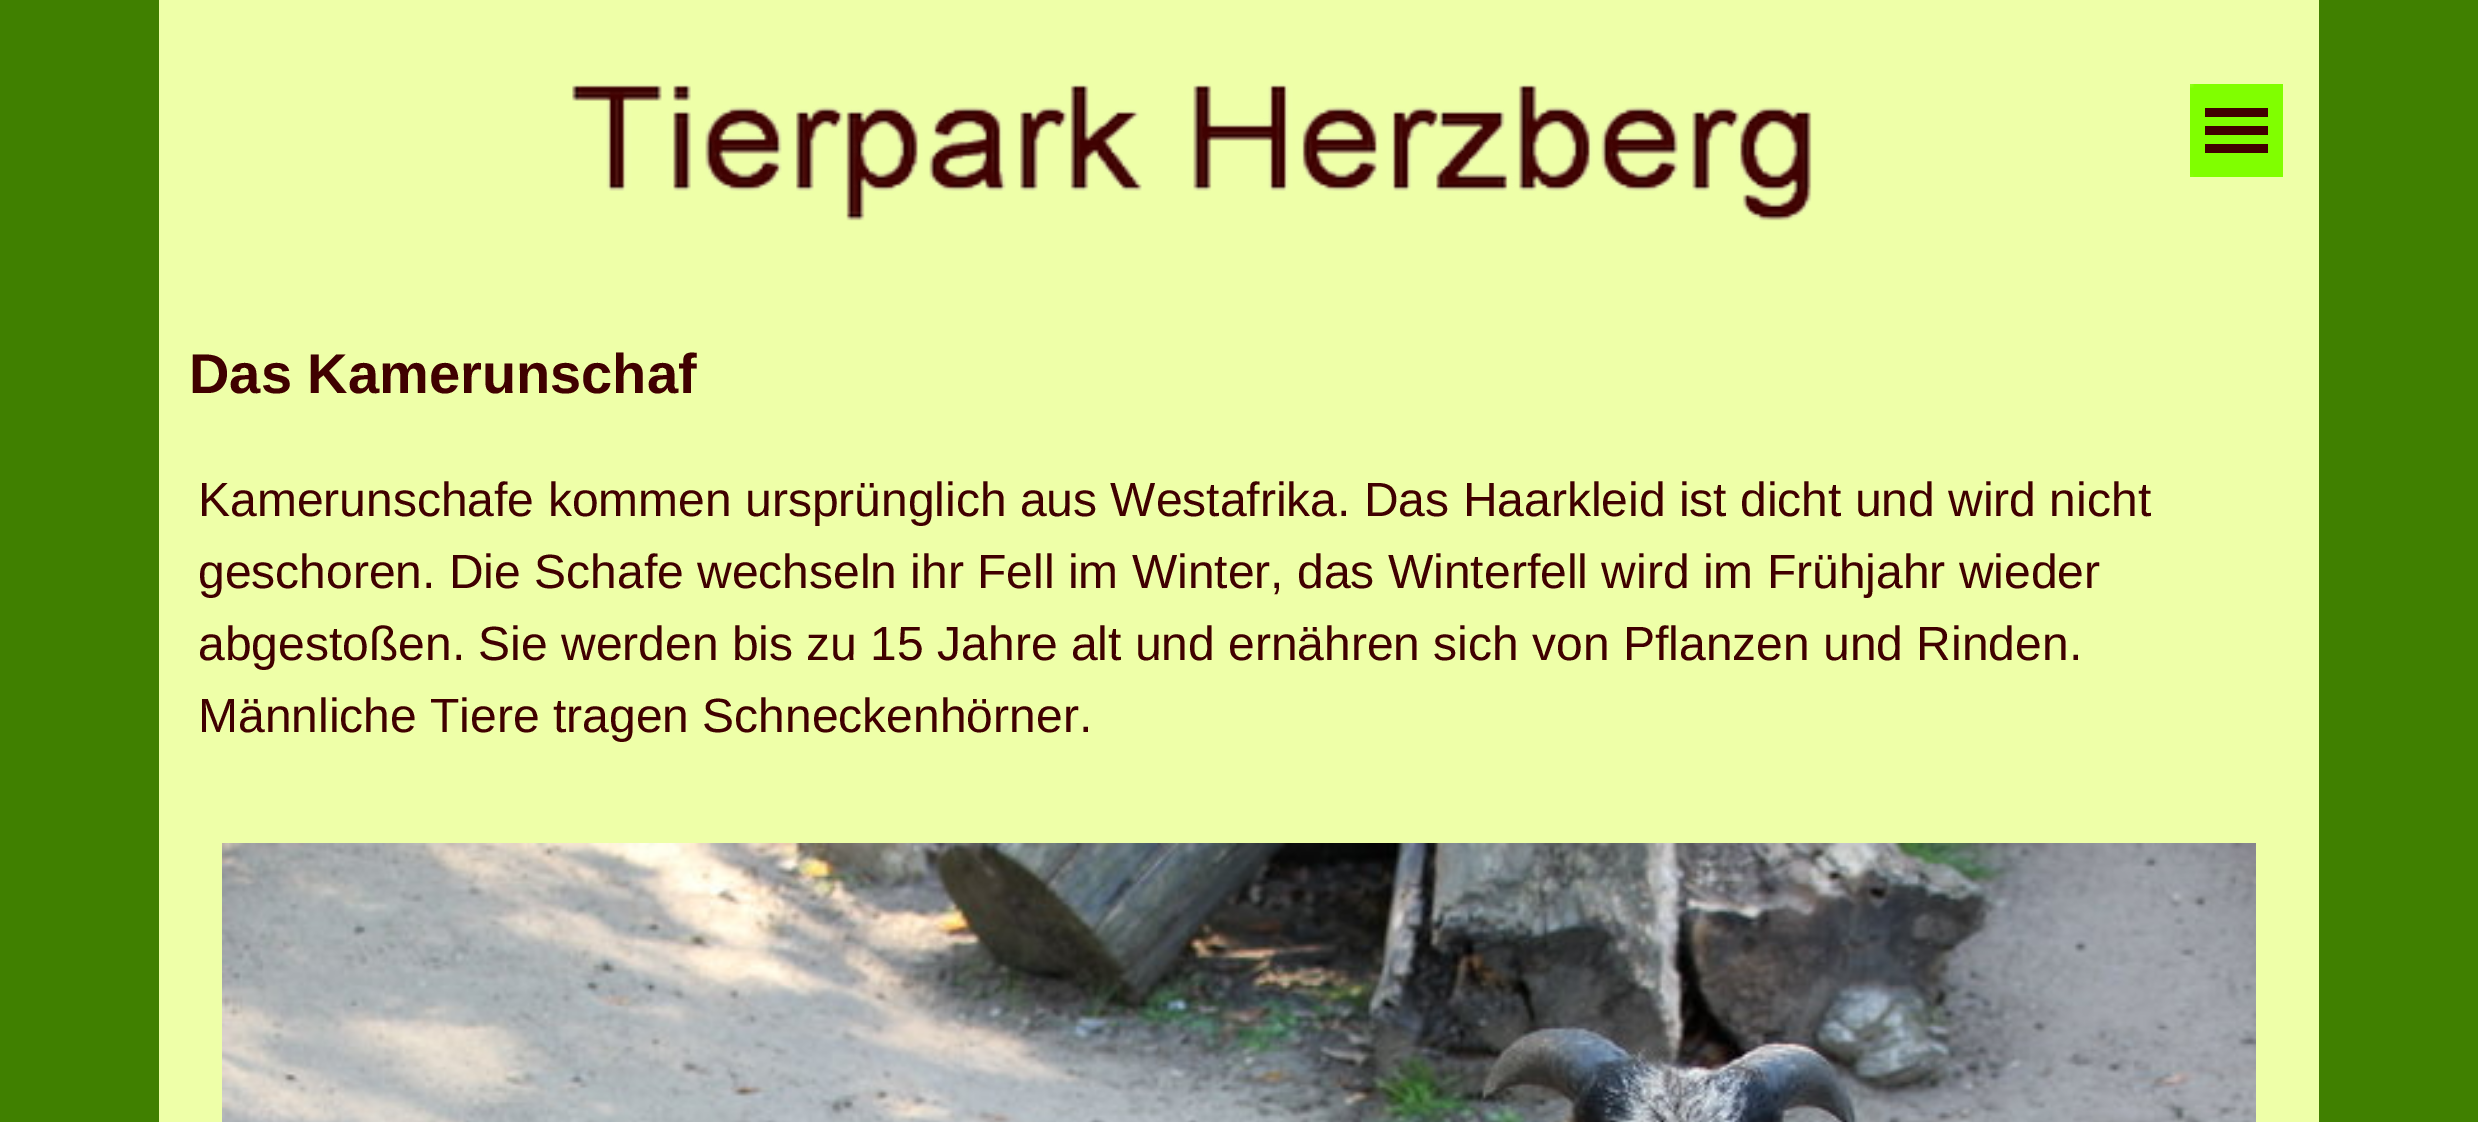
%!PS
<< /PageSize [2478 1122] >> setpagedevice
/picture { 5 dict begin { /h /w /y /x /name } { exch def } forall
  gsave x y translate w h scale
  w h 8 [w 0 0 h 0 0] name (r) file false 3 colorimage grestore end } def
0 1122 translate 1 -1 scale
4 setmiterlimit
0.251 0.502 0 setrgbcolor
0 0 2478 1122 rectfill
0.933 1 0.659 setrgbcolor
159 0 2160 1122 rectfill
(img1.rgb) 572 84 1240 137 picture
(img2.rgb) 2190 84 93 93 picture
0.251 0 0 setrgbcolor
2205 108 63 9 rectfill
2205 126 63 9 rectfill
2205 144 63 9 rectfill
/LiberationSans-Bold [56 0 0 -56 0 0] selectfont
189 393 moveto (Das Kamerunschaf) show
/LiberationSans-Regular [48 0 0 -48 0 0] selectfont
198 516 moveto (Kamerunschafe kommen ursprünglich aus Westafrika. Das Haarkleid ist dicht und wird nicht) show
198 588 moveto (geschoren. Die Schafe wechseln ihr Fell im Winter, das Winterfell wird im Frühjahr wieder) show
198 660 moveto (abgestoßen. Sie werden bis zu 15 Jahre alt und ernähren sich von Pflanzen und Rinden.) show
198 732 moveto (Männliche Tiere tragen Schneckenhörner.) show
(img3.rgb) 222 843 2034 279 picture
showpage
